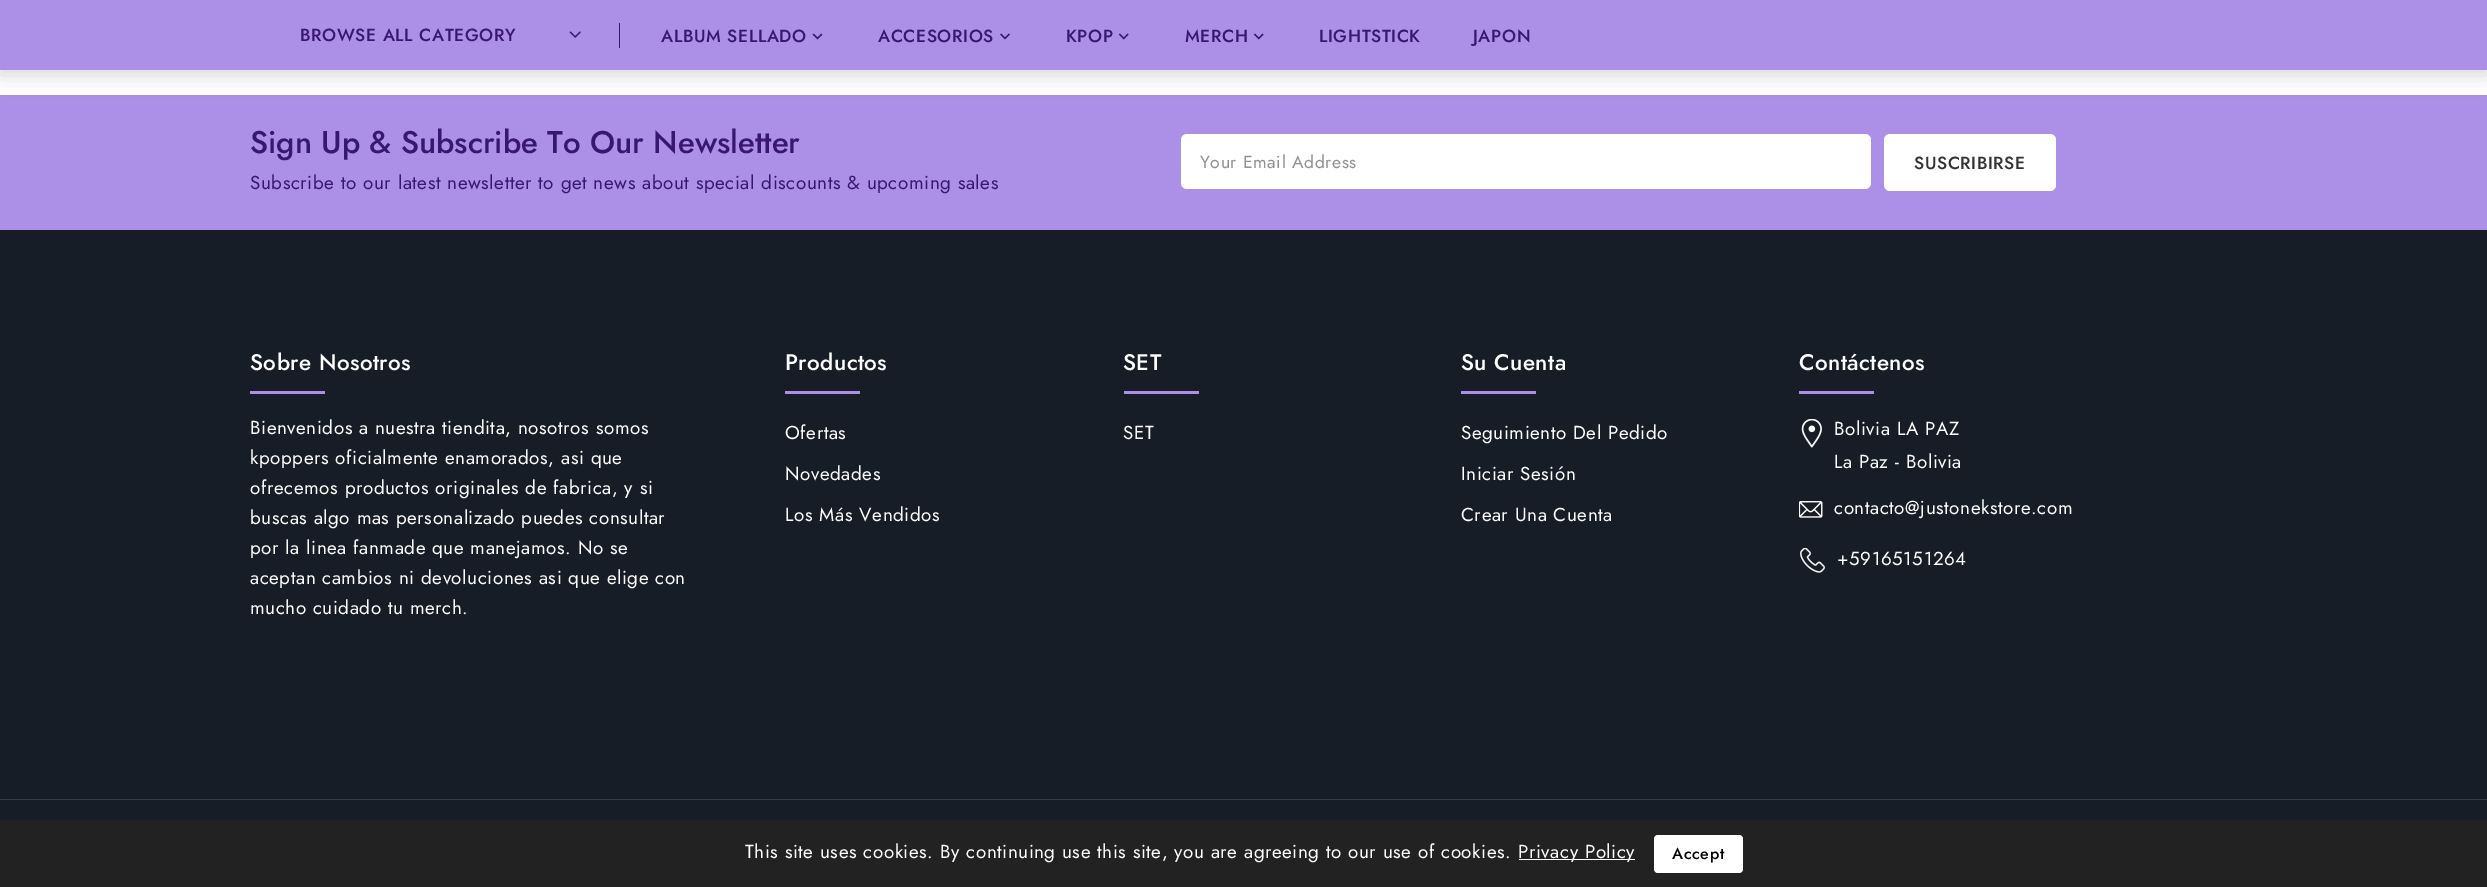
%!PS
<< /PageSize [2487 887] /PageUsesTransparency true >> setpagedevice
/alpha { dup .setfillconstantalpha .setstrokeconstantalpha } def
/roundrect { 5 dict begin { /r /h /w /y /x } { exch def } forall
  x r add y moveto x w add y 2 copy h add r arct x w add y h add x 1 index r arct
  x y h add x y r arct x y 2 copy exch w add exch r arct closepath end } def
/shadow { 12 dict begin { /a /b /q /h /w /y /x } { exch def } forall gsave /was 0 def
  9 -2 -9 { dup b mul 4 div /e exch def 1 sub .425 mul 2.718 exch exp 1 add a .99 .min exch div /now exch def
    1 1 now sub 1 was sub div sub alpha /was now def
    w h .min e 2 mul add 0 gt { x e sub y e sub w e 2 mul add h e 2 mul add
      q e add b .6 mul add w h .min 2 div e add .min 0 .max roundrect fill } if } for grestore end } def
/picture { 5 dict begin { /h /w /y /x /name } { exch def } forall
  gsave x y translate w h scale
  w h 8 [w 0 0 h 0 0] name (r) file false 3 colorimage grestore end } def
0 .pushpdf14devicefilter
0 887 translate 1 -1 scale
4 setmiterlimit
1 setgray
0 0 2487 887 rectfill
0.675 0.561 0.902 setrgbcolor
0 95 2487 135 rectfill
0 setgray
0 5 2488 70 0 10 0.15 shadow
0.675 0.561 0.902 setrgbcolor
0 0 2487 70 rectfill
/Jost-Medium [17.5 0 0 -17.5 0 0] selectfont
0.22 0.086 0.451 setrgbcolor
300 41 moveto 0.62 0 (BROWSE ALL CATEGORY) ashow
(img1.rgb) 569 31 12 7 picture
619 23 1 25 rectfill
661 42 moveto 0.62 0 (ALBUM SELLADO) ashow
(img2.rgb) 812 33 11 7 picture
878 42 moveto 0.62 0 (ACCESORIOS) ashow
(img3.rgb) 1000 33 10 7 picture
1066 42 moveto 0.62 0 (KPOP) ashow
(img4.rgb) 1118 33 11 7 picture
1185 42 moveto 0.62 0 (MERCH) ashow
(img4.rgb) 1253 33 11 7 picture
1319 42 moveto 0.62 0 (LIGHTSTICK) ashow
1473 42 moveto 0.62 0 (JAPON) ashow
0.09 0.114 0.153 setrgbcolor
0 230 2487 590 rectfill
/Jost-Medium [31.25 0 0 -31.25 0 0] selectfont
0.22 0.086 0.451 setrgbcolor
250 153 moveto (Sign Up & Subscribe To Our Newsletter) show
/Jost-Regular [18.75 0 0 -18.75 0 0] selectfont
250 189 moveto 0.62 0 (Subscribe to our latest newsletter to get news about special discounts & upcoming sales) ashow
1 setgray
1181 134 690 55 6 roundrect fill
/Jost-Regular [17.5 0 0 -17.5 0 0] selectfont
0.569 setgray
1200 168 moveto 0.62 0 (Your Email Address) ashow
1 setgray
1884 134 172 57 6 roundrect fill
/Jost-Medium [17.5 0 0 -17.5 0 0] selectfont
0.2 setgray
1914 169 moveto 0.62 0 (SUSCRIBIRSE) ashow
/Jost-Medium [22.5 0 0 -22.5 0 0] selectfont
1 setgray
250 370 moveto 0.4 0 (Sobre Nosotros) ashow
0.675 0.561 0.902 setrgbcolor
250 391 75 3 rectfill
/Jost-Regular [18.75 0 0 -18.75 0 0] selectfont
1 setgray
250 434 moveto 0.62 0 (Bienvenidos a nuestra tiendita, nosotros somos) ashow
250 464 moveto 0.62 0 (kpoppers oficialmente enamorados, asi que) ashow
250 494 moveto 0.62 0 (ofrecemos productos originales de fabrica, y si) ashow
250 524 moveto 0.62 0 (buscas algo mas personalizado puedes consultar) ashow
250 554 moveto 0.62 0 (por la linea fanmade que manejamos. No se) ashow
250 584 moveto 0.62 0 (aceptan cambios ni devoluciones asi que elige con) ashow
250 614 moveto 0.62 0 (mucho cuidado tu merch.) ashow
/Jost-Medium [22.5 0 0 -22.5 0 0] selectfont
785 370 moveto 0.4 0 (Productos) ashow
0.675 0.561 0.902 setrgbcolor
785 391 75 3 rectfill
/Jost-Regular [18.75 0 0 -18.75 0 0] selectfont
1 setgray
785 439 moveto 0.62 0 (Ofertas) ashow
785 480 moveto 0.62 0 (Novedades) ashow
785 521 moveto 0.62 0 (Los Más Vendidos) ashow
/Jost-Medium [22.5 0 0 -22.5 0 0] selectfont
1123 370 moveto 0.4 0 (SET) ashow
0.675 0.561 0.902 setrgbcolor
1124 391 75 3 rectfill
/Jost-Regular [18.75 0 0 -18.75 0 0] selectfont
1 setgray
1123 439 moveto 0.62 0 (SET) ashow
/Jost-Medium [22.5 0 0 -22.5 0 0] selectfont
1461 370 moveto 0.4 0 (Su Cuenta) ashow
0.675 0.561 0.902 setrgbcolor
1461 391 75 3 rectfill
/Jost-Regular [18.75 0 0 -18.75 0 0] selectfont
1 setgray
1461 439 moveto 0.62 0 (Seguimiento Del Pedido) ashow
1461 480 moveto 0.62 0 (Iniciar Sesión) ashow
1461 521 moveto 0.62 0 (Crear Una Cuenta) ashow
/Jost-Medium [22.5 0 0 -22.5 0 0] selectfont
1799 370 moveto 0.4 0 (Contáctenos) ashow
0.675 0.561 0.902 setrgbcolor
1799 391 75 3 rectfill
(img5.rgb) 1801 419 21 29 picture
/Jost-Regular [18.75 0 0 -18.75 0 0] selectfont
1 setgray
1834 435 moveto 0.62 0 (Bolivia LA PAZ) ashow
1834 468 moveto 0.62 0 (La Paz - Bolivia) ashow
(img6.rgb) 1799 501 24 17 picture
1834 514 moveto 0.62 0 (contacto@justonekstore.com) ashow
(img7.rgb) 1800 548 25 25 picture
1837 565 moveto 0.62 0 (+59165151264) ashow
0.133 setgray
0 820 2487 67 rectfill
1 setgray
745 858 moveto 0.62 0 (This site uses cookies. By continuing use this site, you are agreeing to our use of cookies.) ashow
1519 859 116 1 rectfill
1518 858 moveto 0.62 0 (Privacy Policy) ashow
1654 835 89 38 4 roundrect fill
/Jost-Medium [16 0 0 -16 0 0] selectfont
0 setgray
1672 859 moveto 0.62 0 (Accept) ashow
0.216 0.239 0.271 setrgbcolor
0 799 2487 1 rectfill
.poppdf14devicefilter showpage
